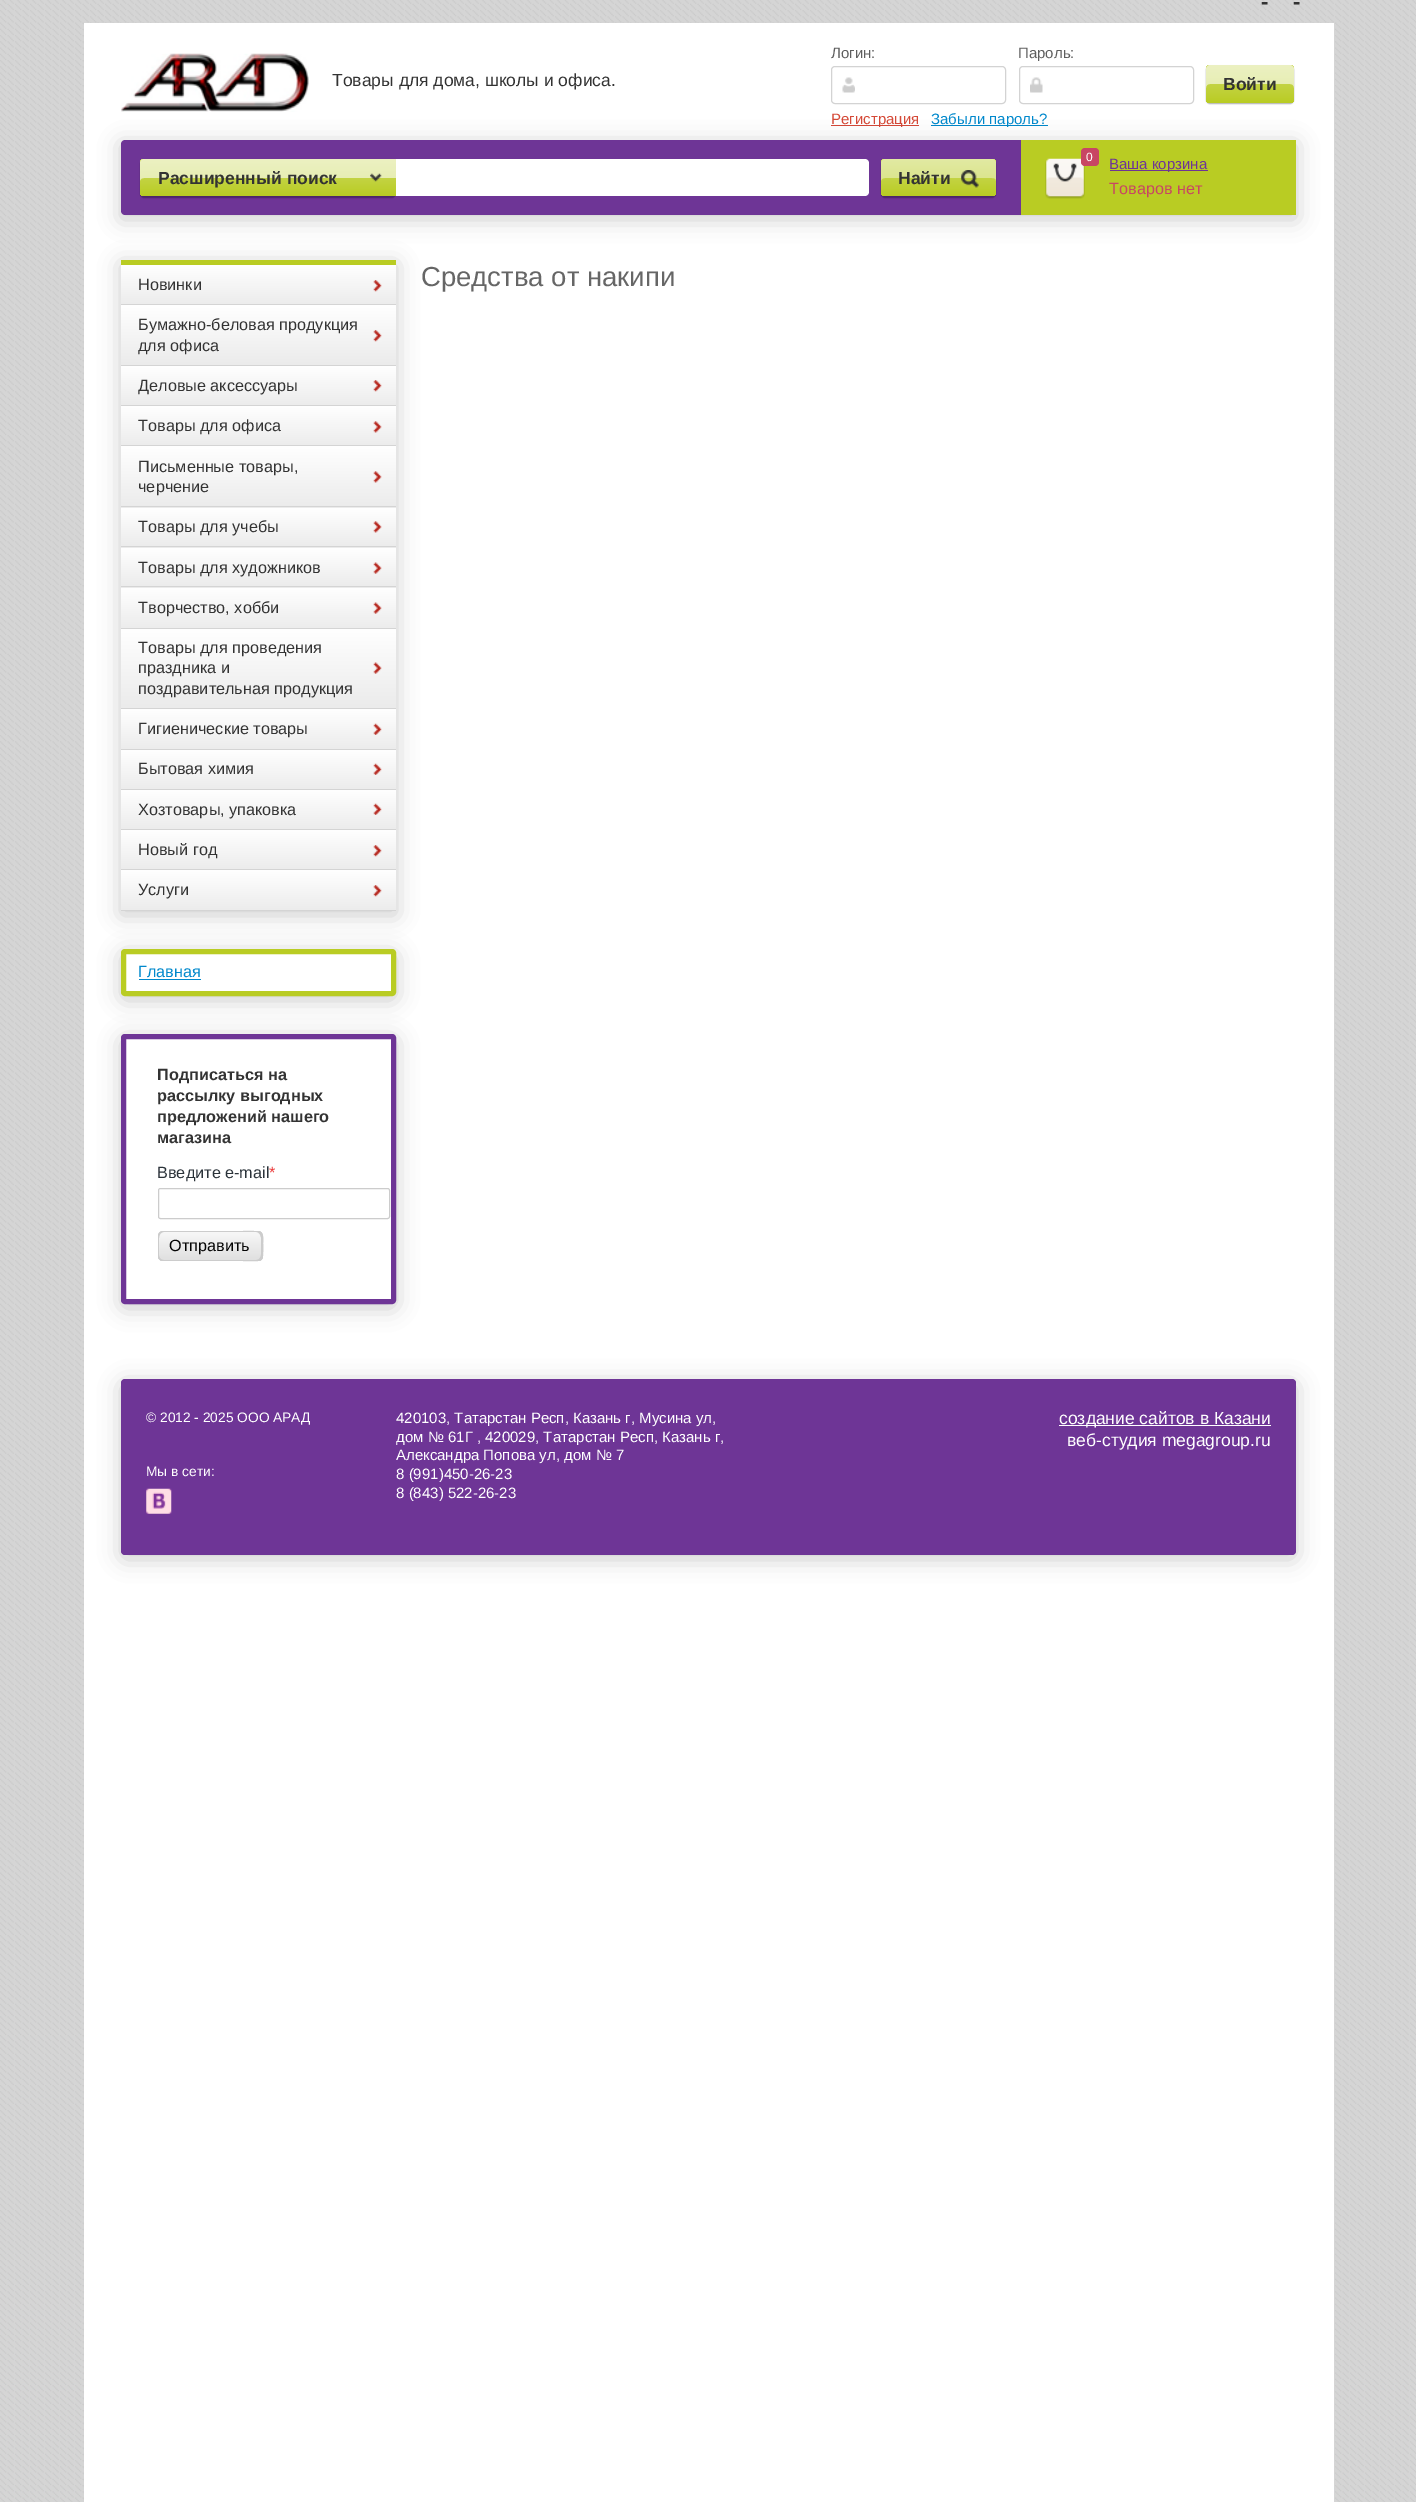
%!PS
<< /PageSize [1416 2502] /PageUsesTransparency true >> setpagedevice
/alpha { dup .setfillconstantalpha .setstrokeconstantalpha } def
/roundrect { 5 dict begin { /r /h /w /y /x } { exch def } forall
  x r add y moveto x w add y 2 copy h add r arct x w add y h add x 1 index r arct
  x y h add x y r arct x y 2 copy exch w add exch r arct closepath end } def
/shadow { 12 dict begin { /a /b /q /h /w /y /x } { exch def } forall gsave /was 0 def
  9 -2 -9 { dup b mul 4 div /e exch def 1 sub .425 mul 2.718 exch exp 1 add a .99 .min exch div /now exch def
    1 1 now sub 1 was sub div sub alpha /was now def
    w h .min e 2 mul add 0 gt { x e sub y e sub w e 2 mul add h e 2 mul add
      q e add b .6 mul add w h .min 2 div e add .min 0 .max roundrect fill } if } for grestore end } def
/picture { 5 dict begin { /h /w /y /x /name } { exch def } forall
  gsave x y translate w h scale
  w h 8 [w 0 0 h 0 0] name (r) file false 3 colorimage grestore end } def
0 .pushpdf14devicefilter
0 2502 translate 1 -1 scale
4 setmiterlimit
0.835 setgray
0 0 1416 2502 rectfill
(img1.rgb) 0 0 1416 2502 picture
1 setgray
84 23 1250 2479 rectfill
/LiberationSans-Bold [22 0 0 -22 0 0] selectfont
0.2 setgray
1261 9 moveto (-) show
1293 9 moveto (-) show
(img2.rgb) 121 53 188 59 picture
/LiberationSans-Regular [17.5 0 0 -17.5 0 0] selectfont
332 86 moveto (Товары для дома, школы и офиса.) show
/LiberationSans-Regular [15 0 0 -15 0 0] selectfont
0.369 setgray
831 58 moveto (Логин:) show
0.827 setgray
831.5 66.5 174 37 3.5 roundrect stroke
(img3.rgb) 842 77 13 16 picture
0.369 setgray
1018 58 moveto (Пароль:) show
0.827 setgray
1019.5 66.5 174 37 3.5 roundrect stroke
(img4.rgb) 1030 77 13 16 picture
0 setgray
1206 66 88 38 4 0.5 0.3 shadow
gsave 1206 65 88 38 4 roundrect clip newpath
<< /ShadingType 2 /ColorSpace /DeviceRGB /Coords [1250 65 1250 103] /Extend [true true] /Function << /FunctionType 2 /Domain [0 1] /C0 [0.808 0.859 0.396] /C1 [0.725 0.8 0.137] /N 1 >> >> shfill grestore
0.6 alpha
1 setgray
newpath 1210 84 moveto 1290 84 lineto 1292 84 1294 85 1294 88 curveto 1294 69 lineto 1294 67 1292 65 1290 65 curveto 1210 65 lineto 1208 65 1206 67 1206 69 curveto 1206 88 lineto 1206 85 1208 84 1210 84 curveto closepath fill
/LiberationSans-Bold [17.5 0 0 -17.5 0 0] selectfont
1 alpha
0.2 setgray
1223 90 moveto (Войти) show
0.835 0.286 0.216 setrgbcolor
831 125 88 1 rectfill
/LiberationSans-Regular [15 0 0 -15 0 0] selectfont
831 124 moveto (Регистрация) show
0 0.533 0.8 setrgbcolor
931 125 117 1 rectfill
931 124 moveto (Забыли пароль?) show
0 setgray
121 144 1175 75 0 11 0.2 shadow
0.431 0.208 0.588 setrgbcolor
newpath 125 140 moveto 1021 140 lineto 1021 215 lineto 125 215 lineto 123 215 121 213 121 211 curveto 121 144 lineto 121 142 123 140 125 140 curveto closepath fill
0 setgray
140 160 256 38 4 0.5 0.3 shadow
gsave newpath 144 159 moveto 396 159 lineto 396 196 lineto 144 196 lineto 142 196 140 194 140 192 curveto 140 163 lineto 140 161 142 159 144 159 curveto closepath clip newpath
<< /ShadingType 2 /ColorSpace /DeviceRGB /Coords [268 159 268 196] /Extend [true true] /Function << /FunctionType 2 /Domain [0 1] /C0 [0.808 0.859 0.396] /C1 [0.725 0.8 0.137] /N 1 >> >> shfill grestore
0.6 alpha
1 setgray
newpath 144 178 moveto 396 178 lineto 396 159 lineto 144 159 lineto 142 159 140 161 140 163 curveto 140 181 lineto 140 179 142 178 144 178 curveto closepath fill
/LiberationSans-Bold [17.5 0 0 -17.5 0 0] selectfont
1 alpha
0.2 setgray
158 184 moveto (Расширенный поиск) show
(img5.rgb) 370 173 12 9 picture
1 setgray
newpath 396 159 moveto 865 159 lineto 867 159 869 161 869 163 curveto 869 192 lineto 869 194 867 196 865 196 curveto 396 196 lineto closepath fill
0 setgray
881 160 115 38 4 0.5 0.3 shadow
gsave 881 159 115 37 4 roundrect clip newpath
<< /ShadingType 2 /ColorSpace /DeviceRGB /Coords [939 159 939 196] /Extend [true true] /Function << /FunctionType 2 /Domain [0 1] /C0 [0.808 0.859 0.396] /C1 [0.725 0.8 0.137] /N 1 >> >> shfill grestore
0.4 alpha
1 setgray
newpath 885 178 moveto 992 178 lineto 995 178 996 179 996 181 curveto 996 163 lineto 996 161 994 159 992 159 curveto 885 159 lineto 883 159 881 161 881 163 curveto 881 181 lineto 881 179 883 178 885 178 curveto closepath fill
1 alpha
0.2 setgray
898 184 moveto (Найти) show
(img6.rgb) 961 170 18 18 picture
0.725 0.8 0.137 setrgbcolor
1021 140 275 75 rectfill
(img7.rgb) 1045 158 40 41 picture
0.784 0.275 0.388 setrgbcolor
1081 148 18 18 4 roundrect fill
/LiberationSans-Regular [12 0 0 -12 0 0] selectfont
1 setgray
1086 161 moveto (0) show
0.431 0.208 0.588 setrgbcolor
1110 170 98 1 rectfill
/LiberationSans-Regular [15 0 0 -15 0 0] selectfont
1109 169 moveto (Ваша корзина) show
/LiberationSans-Regular [16.25 0 0 -16.25 0 0] selectfont
0.784 0.275 0.388 setrgbcolor
1109 194 moveto (Товаров нет) show
0 setgray
121 264 275 651 0 11 0.2 shadow
0.725 0.8 0.137 setrgbcolor
121 260 275 5 rectfill
gsave newpath 121 265 moveto 396 265 lineto 396 304 lineto 121 304 lineto closepath clip newpath
<< /ShadingType 2 /ColorSpace /DeviceRGB /Coords [259 265 259 305] /Extend [true true] /Function << /FunctionType 2 /Domain [0 1] /C0 [1 1 1] /C1 [0.922 0.922 0.922] /N 1 >> >> shfill grestore
0.831 setgray
121 304 275 1 rectfill
(img8.rgb) 373 280 9 12 picture
0.2 setgray
138 290 moveto (Новинки) show
gsave newpath 121 305 moveto 396 305 lineto 396 365 lineto 121 365 lineto closepath clip newpath
<< /ShadingType 2 /ColorSpace /DeviceRGB /Coords [259 305 259 366] /Extend [true true] /Function << /FunctionType 2 /Domain [0 1] /C0 [1 1 1] /C1 [0.922 0.922 0.922] /N 1 >> >> shfill grestore
0.831 setgray
121 365 275 1 rectfill
(img9.rgb) 373 330 9 12 picture
0.2 setgray
138 330 moveto (Бумажно-беловая продукция) show
138 351 moveto (для офиса) show
gsave newpath 121 366 moveto 396 366 lineto 396 405 lineto 121 405 lineto closepath clip newpath
<< /ShadingType 2 /ColorSpace /DeviceRGB /Coords [259 366 259 406] /Extend [true true] /Function << /FunctionType 2 /Domain [0 1] /C0 [1 1 1] /C1 [0.922 0.922 0.922] /N 1 >> >> shfill grestore
0.831 setgray
121 405 275 1 rectfill
(img10.rgb) 373 380 9 12 picture
0.2 setgray
138 391 moveto (Деловые аксессуары) show
gsave newpath 121 406 moveto 396 406 lineto 396 445 lineto 121 445 lineto closepath clip newpath
<< /ShadingType 2 /ColorSpace /DeviceRGB /Coords [259 406 259 446] /Extend [true true] /Function << /FunctionType 2 /Domain [0 1] /C0 [1 1 1] /C1 [0.922 0.922 0.922] /N 1 >> >> shfill grestore
0.831 setgray
121 445 275 1 rectfill
(img11.rgb) 373 421 9 12 picture
0.2 setgray
138 431 moveto (Товары для офиса) show
gsave newpath 121 446 moveto 396 446 lineto 396 508 lineto 121 508 lineto closepath clip newpath
<< /ShadingType 2 /ColorSpace /DeviceRGB /Coords [259 446 259 508] /Extend [true true] /Function << /FunctionType 2 /Domain [0 1] /C0 [1 1 1] /C1 [0.922 0.922 0.922] /N 1 >> >> shfill grestore
0.831 setgray
121 506 275 1 rectfill
(img12.rgb) 373 471 9 12 picture
0.2 setgray
138 472 moveto (Письменные товары,) show
138 492 moveto (черчение) show
gsave newpath 121 508 moveto 396 508 lineto 396 548 lineto 121 548 lineto closepath clip newpath
<< /ShadingType 2 /ColorSpace /DeviceRGB /Coords [259 508 259 548] /Extend [true true] /Function << /FunctionType 2 /Domain [0 1] /C0 [1 1 1] /C1 [0.922 0.922 0.922] /N 1 >> >> shfill grestore
0.831 setgray
121 546 275 1 rectfill
(img13.rgb) 373 521 9 12 picture
0.2 setgray
138 532 moveto (Товары для учебы) show
gsave newpath 121 548 moveto 396 548 lineto 396 588 lineto 121 588 lineto closepath clip newpath
<< /ShadingType 2 /ColorSpace /DeviceRGB /Coords [259 548 259 588] /Extend [true true] /Function << /FunctionType 2 /Domain [0 1] /C0 [1 1 1] /C1 [0.922 0.922 0.922] /N 1 >> >> shfill grestore
0.831 setgray
121 586 275 1 rectfill
(img14.rgb) 373 562 9 12 picture
0.2 setgray
138 573 moveto (Товары для художников) show
gsave newpath 121 588 moveto 396 588 lineto 396 628 lineto 121 628 lineto closepath clip newpath
<< /ShadingType 2 /ColorSpace /DeviceRGB /Coords [259 588 259 629] /Extend [true true] /Function << /FunctionType 2 /Domain [0 1] /C0 [1 1 1] /C1 [0.922 0.922 0.922] /N 1 >> >> shfill grestore
0.831 setgray
121 628 275 1 rectfill
(img15.rgb) 373 602 9 12 picture
0.2 setgray
138 613 moveto (Творчество, хобби) show
gsave newpath 121 629 moveto 396 629 lineto 396 708 lineto 121 708 lineto closepath clip newpath
<< /ShadingType 2 /ColorSpace /DeviceRGB /Coords [259 629 259 709] /Extend [true true] /Function << /FunctionType 2 /Domain [0 1] /C0 [1 1 1] /C1 [0.922 0.922 0.922] /N 1 >> >> shfill grestore
0.831 setgray
121 708 275 1 rectfill
(img16.rgb) 373 662 9 12 picture
0.2 setgray
138 653 moveto (Товары для проведения) show
138 673 moveto (праздника и) show
138 694 moveto (поздравительная продукция) show
gsave newpath 121 709 moveto 396 709 lineto 396 749 lineto 121 749 lineto closepath clip newpath
<< /ShadingType 2 /ColorSpace /DeviceRGB /Coords [259 709 259 750] /Extend [true true] /Function << /FunctionType 2 /Domain [0 1] /C0 [1 1 1] /C1 [0.922 0.922 0.922] /N 1 >> >> shfill grestore
0.831 setgray
121 749 275 1 rectfill
(img17.rgb) 373 723 9 12 picture
0.2 setgray
138 734 moveto (Гигиенические товары) show
gsave newpath 121 750 moveto 396 750 lineto 396 789 lineto 121 789 lineto closepath clip newpath
<< /ShadingType 2 /ColorSpace /DeviceRGB /Coords [259 750 259 790] /Extend [true true] /Function << /FunctionType 2 /Domain [0 1] /C0 [1 1 1] /C1 [0.922 0.922 0.922] /N 1 >> >> shfill grestore
0.831 setgray
121 789 275 1 rectfill
(img18.rgb) 373 763 9 12 picture
0.2 setgray
138 774 moveto (Бытовая химия) show
gsave newpath 121 790 moveto 396 790 lineto 396 829 lineto 121 829 lineto closepath clip newpath
<< /ShadingType 2 /ColorSpace /DeviceRGB /Coords [259 790 259 830] /Extend [true true] /Function << /FunctionType 2 /Domain [0 1] /C0 [1 1 1] /C1 [0.922 0.922 0.922] /N 1 >> >> shfill grestore
0.831 setgray
121 829 275 1 rectfill
(img18.rgb) 373 803 9 12 picture
0.2 setgray
138 815 moveto (Хозтовары, упаковка) show
gsave newpath 121 830 moveto 396 830 lineto 396 869 lineto 121 869 lineto closepath clip newpath
<< /ShadingType 2 /ColorSpace /DeviceRGB /Coords [259 830 259 870] /Extend [true true] /Function << /FunctionType 2 /Domain [0 1] /C0 [1 1 1] /C1 [0.922 0.922 0.922] /N 1 >> >> shfill grestore
0.831 setgray
121 869 275 1 rectfill
(img8.rgb) 373 845 9 12 picture
0.2 setgray
138 855 moveto (Новый год) show
gsave newpath 121 870 moveto 396 870 lineto 396 910 lineto 121 910 lineto closepath clip newpath
<< /ShadingType 2 /ColorSpace /DeviceRGB /Coords [259 870 259 911] /Extend [true true] /Function << /FunctionType 2 /Domain [0 1] /C0 [1 1 1] /C1 [0.922 0.922 0.922] /N 1 >> >> shfill grestore
0.831 setgray
121 910 275 1 rectfill
(img19.rgb) 373 885 9 12 picture
0.2 setgray
138 895 moveto (Услуги) show
0 setgray
121 953 275 47 4 11 0.2 shadow
1 setgray
123.5 951.5 270 42 1.5 roundrect gsave fill grestore
0.725 0.8 0.137 setrgbcolor
5 setlinewidth
stroke
0 0.533 0.8 setrgbcolor
138 977 moveto (Главная) show
139 979 62 1 rectfill
0 setgray
121 1038 275 270 4 11 0.2 shadow
1 setgray
123.5 1036.5 270 265 1.5 roundrect gsave fill grestore
0.431 0.208 0.588 setrgbcolor
stroke
/LiberationSans-Bold [16.25 0 0 -16.25 0 0] selectfont
0.2 setgray
157 1080 moveto (Подписаться на) show
157 1101 moveto (рассылку выгодных) show
157 1122 moveto (предложений нашего) show
157 1143 moveto (магазина) show
/LiberationSans-Regular [16.25 0 0 -16.25 0 0] selectfont
0.169 0.2 0.227 setrgbcolor
157 1178 moveto (Введите e-mail) show
0.922 0.235 0.235 setrgbcolor
269 1178 moveto (*) show
0.8 setgray
1 setlinewidth
158.5 1188.5 231 30 2 roundrect stroke
gsave 158 1231 105 30 5 roundrect clip newpath
<< /ShadingType 2 /ColorSpace /DeviceRGB /Coords [210 1231 210 1261] /Extend [true true] /Function << /FunctionType 2 /Domain [0 1] /C0 [0.973 0.973 0.973] /C1 [0.875 0.875 0.875] /N 1 >> >> shfill grestore
newpath 160 1232 moveto 159 1233 158 1235 158 1236 curveto 158 1256 lineto 158 1259 160 1261 163 1261 curveto 258 1261 lineto 259 1261 261 1260 262 1259 curveto 259 1260 lineto 164 1260 lineto 161 1260 159 1258 159 1255 curveto 159 1235 lineto closepath fill
newpath 161 1232 moveto 256 1232 lineto 259 1232 261 1235 261 1238 curveto 261 1258 lineto 261 1259 261 1260 260 1261 curveto 263 1259 263 1256 263 1253 curveto 263 1229 267 1231 242 1231 curveto 163 1231 lineto 160 1232 lineto closepath fill
newpath 160 1260 moveto 163 1261 lineto 242 1261 lineto 266 1261 263 1264 263 1243 curveto 263 1239 264 1233 259 1231 curveto 262 1234 261 1242 261 1245 curveto 261 1249 263 1260 256 1260 curveto closepath fill
newpath 164 1232 moveto 260 1232 lineto 262 1234 lineto 262 1232 260 1231 258 1231 curveto 163 1231 lineto 160 1231 158 1233 158 1236 curveto 158 1256 lineto 158 1257 158 1258 159 1259 curveto 159 1248 lineto 159 1244 157 1232 164 1232 curveto closepath fill
0.016 setgray
169 1251 moveto (Отправить) show
/LiberationSans-Regular [27.5 0 0 -27.5 0 0] selectfont
0.4 setgray
421 286 moveto (Средства от накипи) show
0 setgray
121 1383 1175 176 4 11 0.2 shadow
0.431 0.208 0.588 setrgbcolor
121 1379 1175 176 4 roundrect fill
/LiberationSans-Regular [13.75 0 0 -13.75 0 0] selectfont
1 setgray
146 1422 moveto (© 2012 - 2025 ООО АРАД) show
146 1476 moveto (Мы в сети:) show
(img20.rgb) 146 1488 26 26 picture
/LiberationSans-Regular [15 0 0 -15 0 0] selectfont
396 1423 moveto (420103, Татарстан Респ, Казань г, Мусина ул,) show
396 1442 moveto (дом № 61Г , 420029, Татарстан Респ, Казань г,) show
396 1460 moveto (Александра Попова ул, дом № 7) show
396 1479 moveto (8 \(991\)450-26-23) show
396 1498 moveto (8 \(843\) 522-26-23) show
1059 1425 212 1 rectfill
/LiberationSans-Regular [17.5 0 0 -17.5 0 0] selectfont
1059 1424 moveto (создание сайтов в Казани) show
1067 1446 moveto (веб-студия megagroup.ru) show
.poppdf14devicefilter showpage
